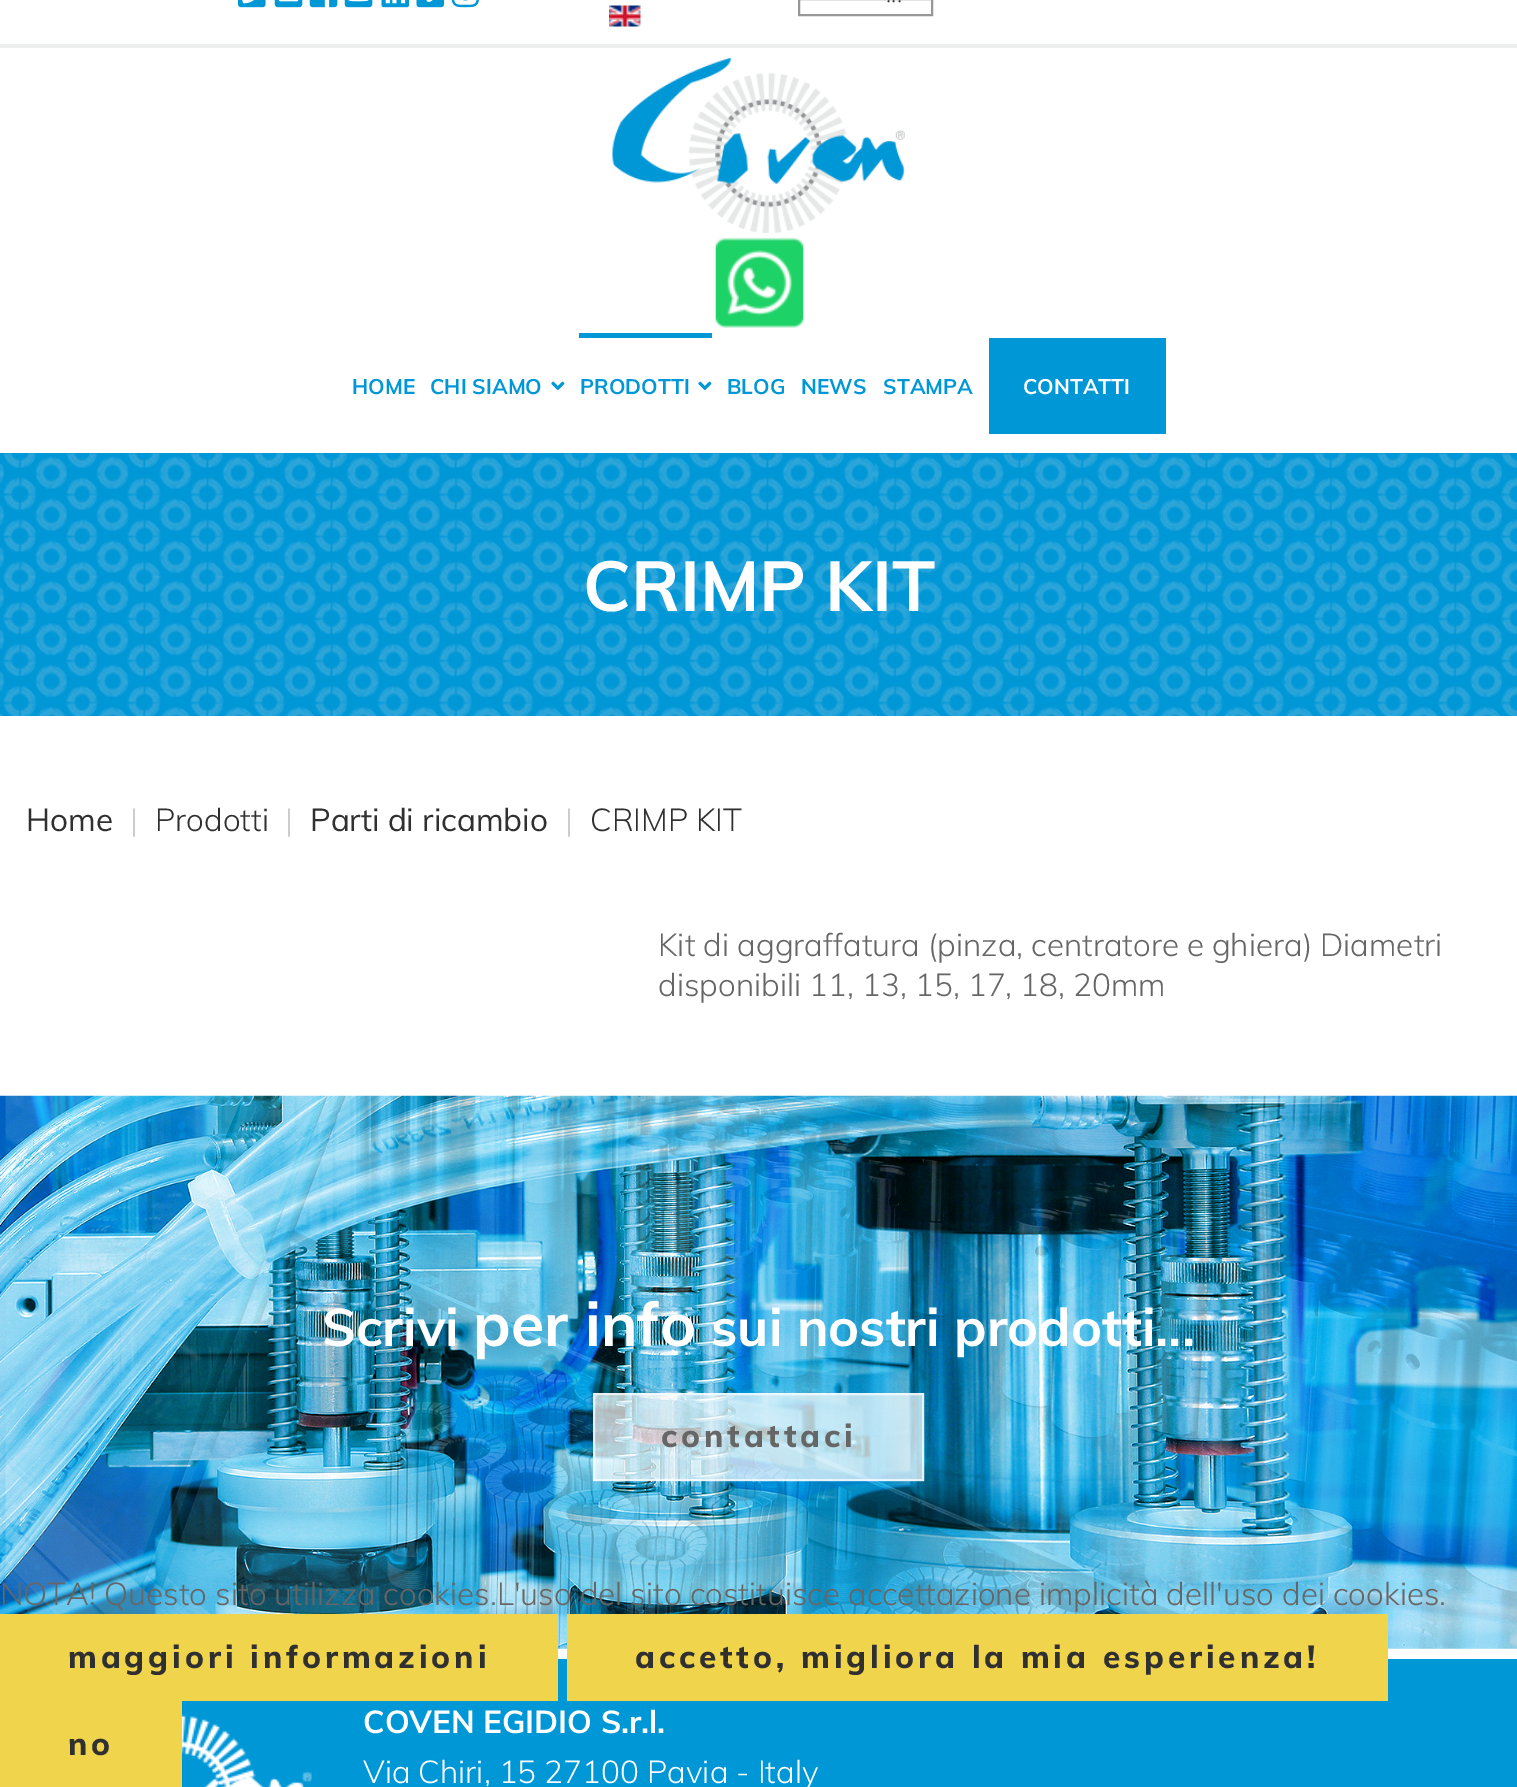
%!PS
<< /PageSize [1517 1787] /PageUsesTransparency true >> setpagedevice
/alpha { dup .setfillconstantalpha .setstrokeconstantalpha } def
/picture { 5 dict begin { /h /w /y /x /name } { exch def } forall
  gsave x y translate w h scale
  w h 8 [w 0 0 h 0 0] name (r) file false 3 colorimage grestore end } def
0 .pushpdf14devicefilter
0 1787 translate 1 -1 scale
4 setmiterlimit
1 setgray
0 0 1517 1787 rectfill
0.925 0.929 0.929 setrgbcolor
0 44 1517 4 rectfill
(img1.rgb) 238 0 28 8 picture
(img2.rgb) 274 0 29 8 picture
(img3.rgb) 309 0 29 8 picture
(img4.rgb) 344 0 29 8 picture
(img5.rgb) 381 0 29 8 picture
(img6.rgb) 416 0 29 8 picture
(img7.rgb) 451 0 28 8 picture
0.592 setgray
2 setlinewidth
799 -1 133 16 rectstroke
/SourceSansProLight-Light [24 0 0 -24 0 0] selectfont
0.188 setgray
886 2 moveto (...) show
(img8.rgb) 609 5 32 22 picture
(img9.rgb) 612 58 293 175 picture
(img10.rgb) 715 237 89 91 picture
/Muli-Bold [21 0 0 -21 0 0] selectfont
0 0.592 0.843 setrgbcolor
352 394 moveto (HOME) show
430 394 moveto (CHI SIAMO) show
(img11.rgb) 551 381 14 10 picture
579 333 133 5 rectfill
580 394 moveto (PRODOTTI) show
(img11.rgb) 698 381 14 10 picture
727 394 moveto (BLOG) show
801 394 moveto (NEWS) show
883 394 moveto (STAMPA) show
989 338 177 96 rectfill
1 setgray
1023 394 moveto (CONTATTI) show
0 0.592 0.843 setrgbcolor
0 453 1517 263 rectfill
(img12.rgb) 0 453 1517 263 picture
/Muli-Bold [70 0 0 -70 0 0] selectfont
1 setgray
583 611 moveto (CRIMP KIT) show
/Muli-Regular [31.5 0 0 -31.5 0 0] selectfont
0.188 setgray
26 831 moveto (Home) show
/Muli-Light [31.5 0 0 -31.5 0 0] selectfont
0.8 setgray
130 831 moveto (|) show
0.188 setgray
155 831 moveto (Prodotti) show
0.8 setgray
285 831 moveto (|) show
/Muli-Regular [31.5 0 0 -31.5 0 0] selectfont
0.188 setgray
310 831 moveto (Parti di ricambio) show
/Muli-Light [31.5 0 0 -31.5 0 0] selectfont
0.8 setgray
565 831 moveto (|) show
0.188 setgray
590 831 moveto (CRIMP KIT) show
0.4 setgray
658 956 moveto (Kit di aggraffatura \(pinza, centratore e ghiera\) Diametri) show
658 996 moveto (disponibili 11, 13, 15, 17, 18, 20mm) show
(img13.rgb) 0 1095 1517 554 picture
/Muli-Bold [52.5 0 0 -52.5 0 0] selectfont
1 setgray
322 1346 moveto (Scrivi) show
/Muli-Bold [61 0 0 -61 0 0] selectfont
473 1346 moveto (per info) show
/Muli-Bold [52.5 0 0 -52.5 0 0] selectfont
711 1346 moveto (sui nostri prodotti...) show
0.7 alpha
593 1393 331 88 rectfill
594 1394 329 86 rectstroke
/Muli-ExtraBold [31.5 0 0 -31.5 0 0] selectfont
1 alpha
0.4 setgray
661 1447 moveto 3.95 0 (contattaci) ashow
0 0.592 0.843 setrgbcolor
182 1659 1335 128 rectfill
(img14.rgb) 182 1714 130 73 picture
/Muli-Bold [31.5 0 0 -31.5 0 0] selectfont
1 setgray
363 1733 moveto (COVEN EGIDIO S.r.l.) show
/Muli-Light [31.5 0 0 -31.5 0 0] selectfont
363 1783 moveto (Via Chiri, 15 27100 Pavia - Italy) show
0.4 setgray
0 1605 moveto (NOTA! Questo sito utilizza cookies.L'uso del sito costituisce accettazione implicità dell'uso dei cookies.) show
0.941 0.831 0.298 setrgbcolor
0 1614 558 87 rectfill
/Muli-ExtraBold [31.5 0 0 -31.5 0 0] selectfont
0.188 setgray
68 1668 moveto 3.95 0 (maggiori informazioni) ashow
0.941 0.831 0.298 setrgbcolor
567 1614 821 87 rectfill
0.188 setgray
635 1668 moveto 3.95 0 (accetto, migliora la mia esperienza!) ashow
0.941 0.831 0.298 setrgbcolor
0 1701 182 86 rectfill
0.188 setgray
68 1755 moveto 3.95 0 (no) ashow
.poppdf14devicefilter showpage
